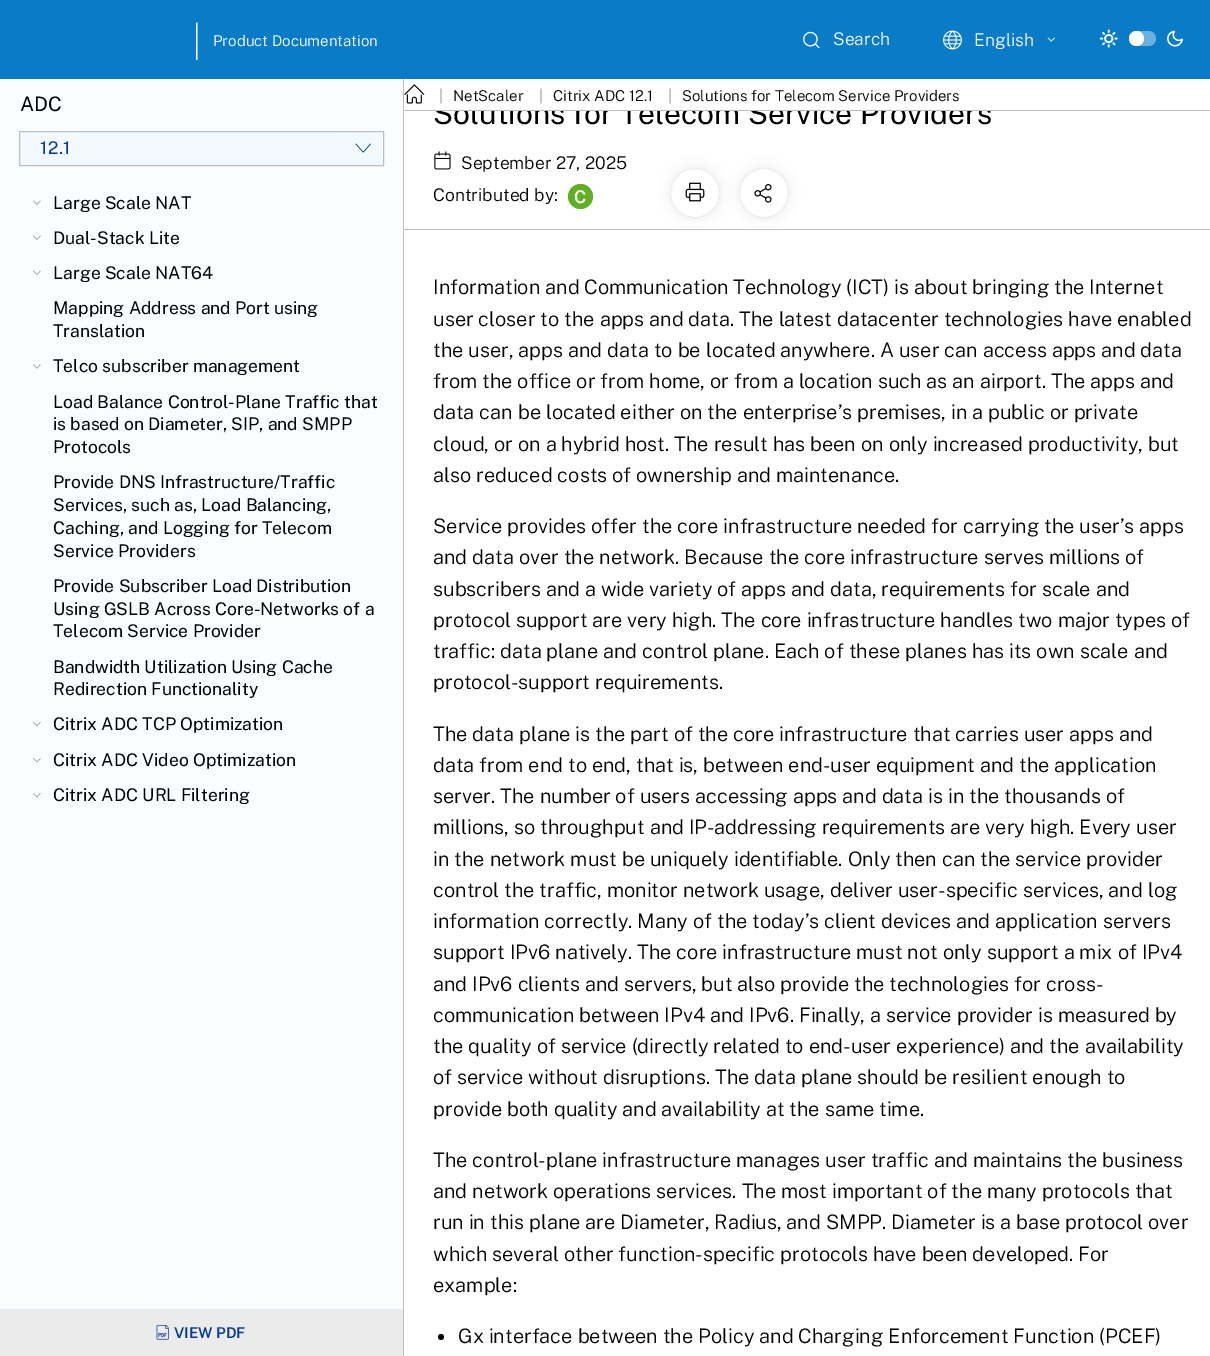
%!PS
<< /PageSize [1210 1356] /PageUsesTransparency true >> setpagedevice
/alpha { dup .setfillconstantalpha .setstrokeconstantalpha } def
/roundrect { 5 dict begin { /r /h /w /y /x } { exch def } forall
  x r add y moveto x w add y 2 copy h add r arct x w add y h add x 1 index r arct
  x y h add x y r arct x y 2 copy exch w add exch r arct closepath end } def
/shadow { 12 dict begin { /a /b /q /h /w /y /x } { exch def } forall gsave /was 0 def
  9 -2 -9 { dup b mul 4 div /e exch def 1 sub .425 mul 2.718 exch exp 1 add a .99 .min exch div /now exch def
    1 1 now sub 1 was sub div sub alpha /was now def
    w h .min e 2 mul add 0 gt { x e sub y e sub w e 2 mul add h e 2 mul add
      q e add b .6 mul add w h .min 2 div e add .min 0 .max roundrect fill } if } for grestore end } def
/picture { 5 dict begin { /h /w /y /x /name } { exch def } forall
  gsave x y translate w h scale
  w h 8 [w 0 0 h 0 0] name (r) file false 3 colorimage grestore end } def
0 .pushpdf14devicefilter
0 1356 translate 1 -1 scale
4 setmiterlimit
1 setgray
0 0 1210 1356 rectfill
0.039 0.482 0.776 setrgbcolor
0 0 1210 79 rectfill
1 setgray
newpath 197 22.5 moveto 196 23 lineto 196 59.5 lineto 197 60 lineto 197.5 59.5 lineto 197.5 23 lineto closepath fill
/PublicSans-Light [15 0 0 -15 0 0] selectfont
213 46 moveto (Product Documentation) show
(img1.rgb) 803 31 17 18 picture
/PublicSans-Light [17.5 0 0 -17.5 0 0] selectfont
833 45 moveto (Search) show
(img2.rgb) 943 30 19 20 picture
974 46 moveto (English) show
(img3.rgb) 1047 37 8 5 picture
(img4.rgb) 1099 29 19 19 picture
0.424 0.69 0.867 setrgbcolor
1129 31 27 15 7.5 roundrect fill
1 setgray
newpath 1136.5 38.5 7.5 0 360 arc closepath fill
(img5.rgb) 1167 30 16 17 picture
0.976 0.992 1 setrgbcolor
0 79 403 1230 rectfill
0.745 setgray
403 79 1 1277 rectfill
/PublicSans-Regular [20 0 0 -20 0 0] selectfont
0 setgray
20 111 moveto (ADC) show
0.949 0.98 1 setrgbcolor
newpath 19.5 131.5 moveto 383.5 131.5 lineto 383.5 165.5 lineto 19.5 165.5 lineto closepath gsave fill grestore
0.745 setgray
stroke
/PublicSans-Regular [17.5 0 0 -17.5 0 0] selectfont
0.024 0.231 0.573 setrgbcolor
40 154 moveto 0.5 0 (12.1) ashow
(img6.rgb) 355 143 16 10 picture
(img7.rgb) 33 200 8 5 picture
0 setgray
53 209 moveto (Large Scale NAT) show
(img7.rgb) 33 235 8 5 picture
53 244 moveto (Dual-Stack Lite) show
(img7.rgb) 33 270 8 5 picture
53 279 moveto (Large Scale NAT64) show
53 314 moveto (Mapping Address and Port using) show
53 337 moveto (Translation) show
(img8.rgb) 33 364 8 5 picture
53 372 moveto (Telco subscriber management) show
53 408 moveto (Load Balance Control-Plane Traffic that) show
53 430 moveto (is based on Diameter, SIP, and SMPP) show
53 453 moveto (Protocols) show
53 488 moveto (Provide DNS Infrastructure/Traffic) show
53 511 moveto (Services, such as, Load Balancing,) show
53 534 moveto (Caching, and Logging for Telecom) show
53 557 moveto (Service Providers) show
53 592 moveto (Provide Subscriber Load Distribution) show
53 615 moveto (Using GSLB Across Core-Networks of a) show
53 637 moveto (Telecom Service Provider) show
53 673 moveto (Bandwidth Utilization Using Cache) show
53 695 moveto (Redirection Functionality) show
(img9.rgb) 33 721 8 6 picture
53 730 moveto (Citrix ADC TCP Optimization) show
(img10.rgb) 33 758 8 5 picture
53 766 moveto (Citrix ADC Video Optimization) show
(img10.rgb) 33 793 8 5 picture
53 801 moveto (Citrix ADC URL Filtering) show
0.922 setgray
0 1309 403 47 rectfill
(img11.rgb) 156 1325 13 15 picture
/PublicSans-SemiBold [15 0 0 -15 0 0] selectfont
0.024 0.231 0.573 setrgbcolor
174 1338 moveto (VIEW PDF) show
/PublicSans-Regular [30 0 0 -30 0 0] selectfont
0 setgray
433 124 moveto (Solutions for Telecom Service Providers) show
1 setgray
435 101 555 9 rectfill
0.745 setgray
404 110 806 1 rectfill
(img12.rgb) 404 84 21 20 picture
/PublicSans-Light [15 0 0 -15 0 0] selectfont
0.6 setgray
439 101 moveto (|) show
0 setgray
453 101 moveto (NetScaler) show
0.6 setgray
539 101 moveto (|) show
0 setgray
553 101 moveto (Citrix ADC 12.1) show
0.6 setgray
668 101 moveto (|) show
0 setgray
682 101 moveto (Solutions for Telecom Service Providers) show
0.745 setgray
404 229 806 1 rectfill
(img13.rgb) 434 151 17 19 picture
/PublicSans-Light [17.5 0 0 -17.5 0 0] selectfont
0 setgray
461 169 moveto (September 27, 2025) show
433 201 moveto (Contributed by:) show
0.38 0.69 0.141 setrgbcolor
newpath 580.5 196.5 12.5 0 360 arc closepath fill
/PublicSans-SemiBold [17.5 0 0 -17.5 0 0] selectfont
1 setgray
574 203 moveto (C) show
0 setgray
670 168 50 50 25 6 0.07 shadow
1 setgray
newpath 695 193 25 0 360 arc closepath fill
0.07 alpha
0 setgray
newpath 695 193 24.5 0 360 arc closepath stroke
1 alpha
(img14.rgb) 685 182 20 20 picture
739 168 50 50 25 6 0.07 shadow
1 setgray
newpath 764 193 25 0 360 arc closepath fill
0.07 alpha
0 setgray
newpath 764 193 24.5 0 360 arc closepath stroke
1 alpha
(img15.rgb) 754 184 18 19 picture
/PublicSans-Light [20 0 0 -20 0 0] selectfont
433 294 moveto (Information and Communication Technology \(ICT\) is about bringing the Internet) show
433 326 moveto (user closer to the apps and data. The latest datacenter technologies have enabled) show
433 357 moveto (the user, apps and data to be located anywhere. A user can access apps and data) show
433 388 moveto (from the office or from home, or from a location such as an airport. The apps and) show
433 419 moveto (data can be located either on the enterprise’s premises, in a public or private) show
433 451 moveto (cloud, or on a hybrid host. The result has been on only increased productivity, but) show
433 482 moveto (also reduced costs of ownership and maintenance.) show
433 533 moveto (Service provides offer the core infrastructure needed for carrying the user’s apps) show
433 564 moveto (and data over the network. Because the core infrastructure serves millions of) show
433 596 moveto (subscribers and a wide variety of apps and data, requirements for scale and) show
433 627 moveto (protocol support are very high. The core infrastructure handles two major types of) show
433 658 moveto (traffic: data plane and control plane. Each of these planes has its own scale and) show
433 689 moveto (protocol-support requirements.) show
433 741 moveto (The data plane is the part of the core infrastructure that carries user apps and) show
433 772 moveto (data from end to end, that is, between end-user equipment and the application) show
433 803 moveto (server. The number of users accessing apps and data is in the thousands of) show
433 834 moveto (millions, so throughput and IP-addressing requirements are very high. Every user) show
433 866 moveto (in the network must be uniquely identifiable. Only then can the service provider) show
433 897 moveto (control the traffic, monitor network usage, deliver user-specific services, and log) show
433 928 moveto (information correctly. Many of the today’s client devices and application servers) show
433 959 moveto (support IPv6 natively. The core infrastructure must not only support a mix of IPv4) show
433 991 moveto (and IPv6 clients and servers, but also provide the technologies for cross-) show
433 1022 moveto (communication between IPv4 and IPv6. Finally, a service provider is measured by) show
433 1053 moveto (the quality of service \(directly related to end-user experience\) and the availability) show
433 1084 moveto (of service without disruptions. The data plane should be resilient enough to) show
433 1116 moveto (provide both quality and availability at the same time.) show
433 1167 moveto (The control-plane infrastructure manages user traffic and maintains the business) show
433 1198 moveto (and network operations services. The most important of the many protocols that) show
433 1229 moveto (run in this plane are Diameter, Radius, and SMPP. Diameter is a base protocol over) show
433 1261 moveto (which several other function-specific protocols have been developed. For) show
433 1292 moveto (example:) show
newpath 441 1337 3 0 360 arc closepath fill
458 1343 moveto (Gx interface between the Policy and Charging Enforcement Function \(PCEF\)) show
.poppdf14devicefilter showpage
